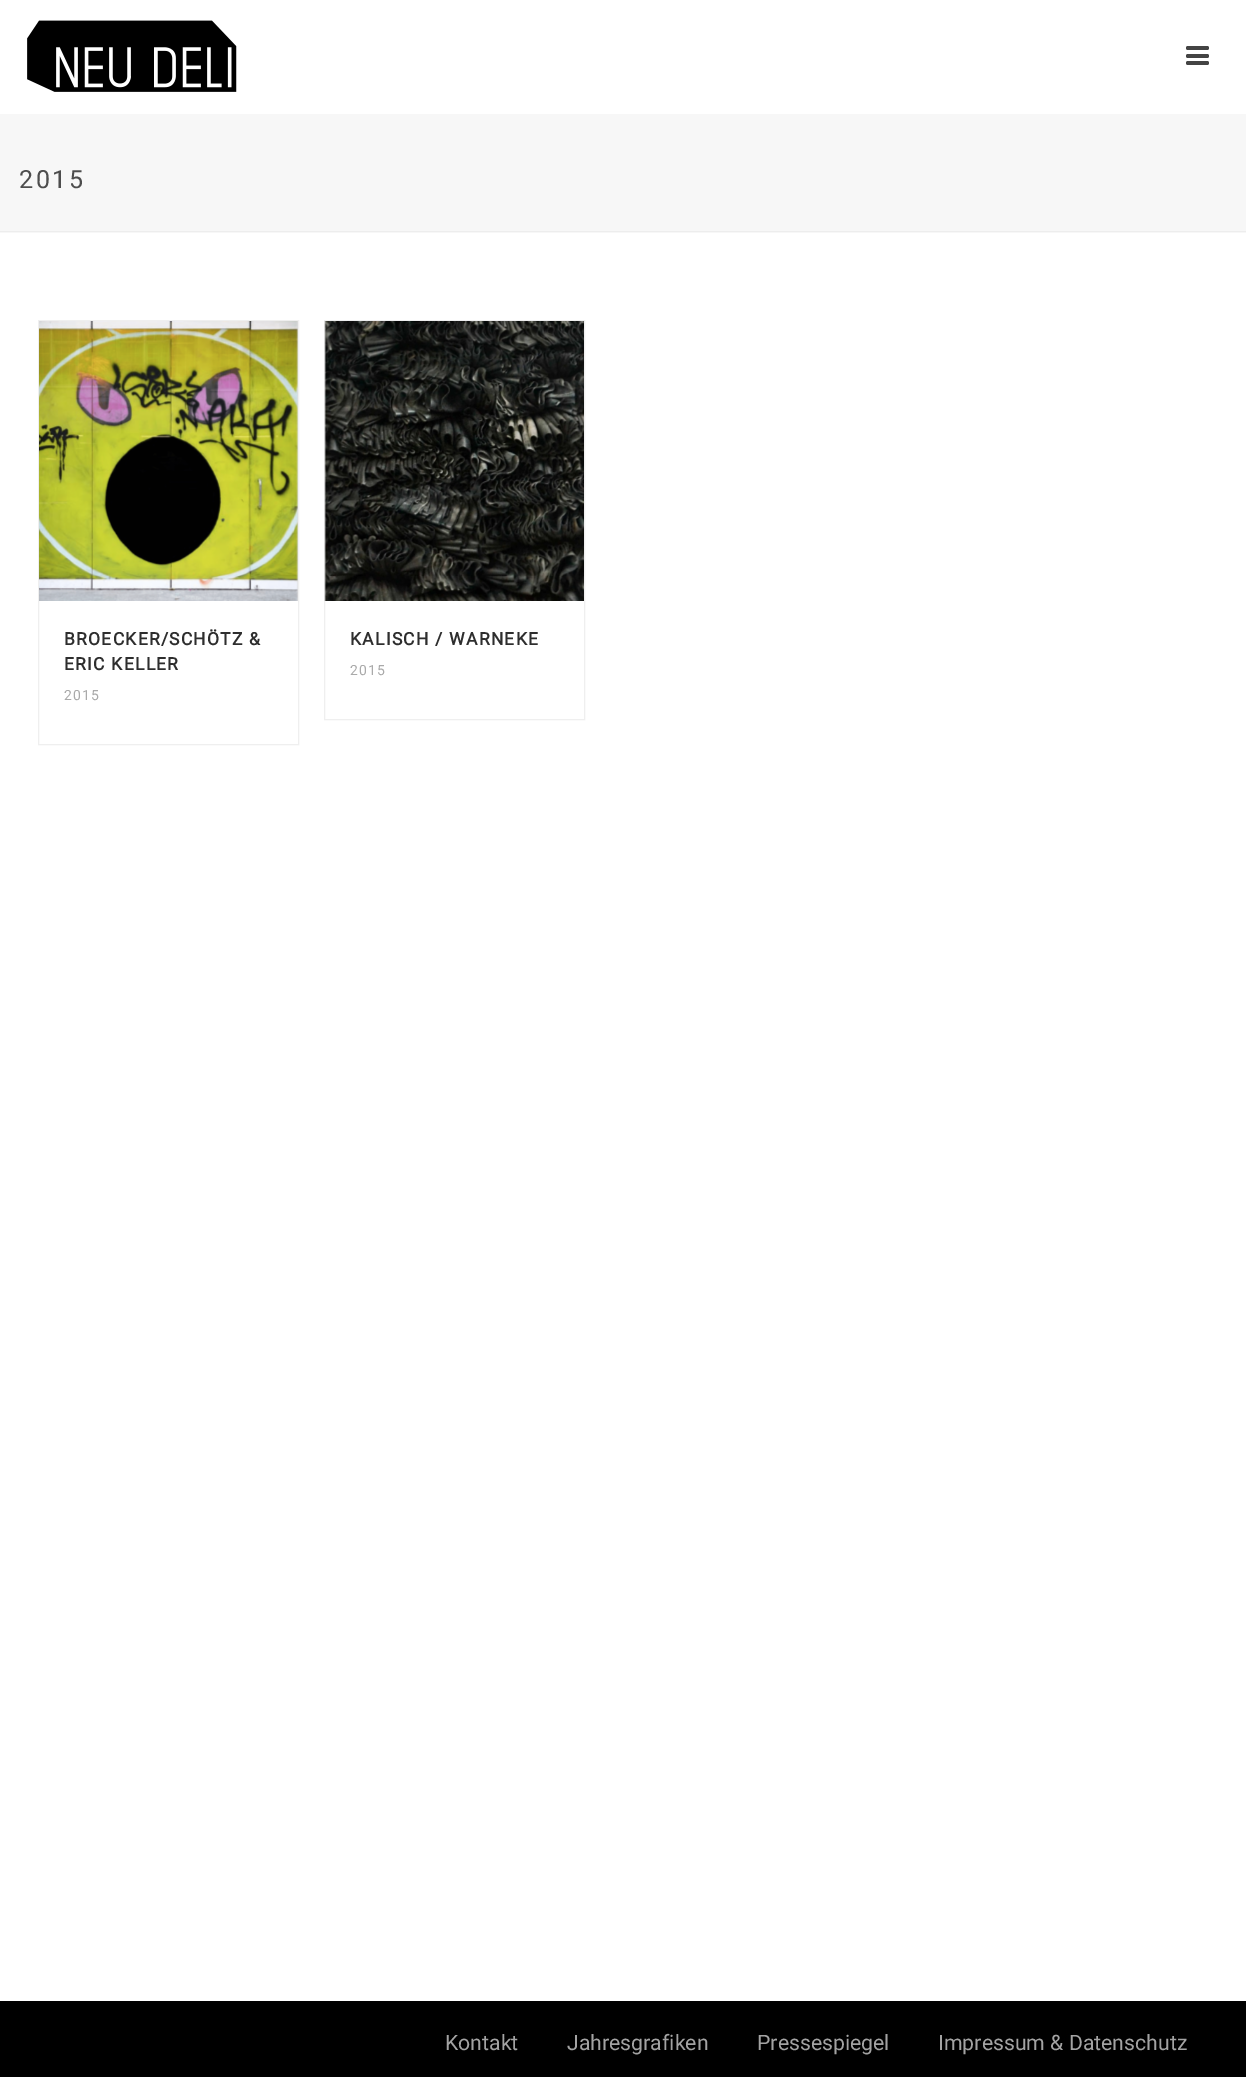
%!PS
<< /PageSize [1246 2077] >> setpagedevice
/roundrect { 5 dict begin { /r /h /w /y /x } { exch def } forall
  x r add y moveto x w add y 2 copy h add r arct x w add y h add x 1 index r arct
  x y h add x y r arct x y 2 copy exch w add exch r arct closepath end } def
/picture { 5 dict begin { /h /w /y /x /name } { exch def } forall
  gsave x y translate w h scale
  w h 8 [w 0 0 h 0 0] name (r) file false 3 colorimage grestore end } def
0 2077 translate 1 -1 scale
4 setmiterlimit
1 setgray
0 0 1246 2077 rectfill
0.969 setgray
0 114 1246 119 rectfill
0.929 setgray
0 231 1246 1 rectfill
(img1.rgb) 27 20 210 72 picture
0.267 setgray
1186 46 23 4 2 roundrect fill
1186 54 23 4 2 roundrect fill
1186 61 23 4 2 roundrect fill
/Roboto-Regular [25 0 0 -25 0 0] selectfont
0.302 setgray
19 188 moveto 2.5 0 (2015) ashow
0.937 setgray
38.5 320.5 260 424 rectstroke
0.878 setgray
296 321 2 280 rectfill
(img2.rgb) 39 321 259 280 picture
/Roboto-Bold [17.5 0 0 -17.5 0 0] selectfont
0.18 setgray
64 645 moveto 1.25 0 (BROECKER/SCHÖTZ &) ashow
64 670 moveto 1.25 0 (ERIC KELLER) ashow
/Roboto-Regular [14 0 0 -14 0 0] selectfont
0.667 setgray
64 700 moveto 1.25 0 (2015) ashow
0.937 setgray
324.5 320.5 260 399 rectstroke
0.878 setgray
325 321 1 280 rectfill
(img3.rgb) 324 321 260 280 picture
/Roboto-Bold [17.5 0 0 -17.5 0 0] selectfont
0.18 setgray
350 645 moveto 1.25 0 (KALISCH / WARNEKE) ashow
/Roboto-Regular [14 0 0 -14 0 0] selectfont
0.667 setgray
350 675 moveto 1.25 0 (2015) ashow
0 setgray
0 2001 1246 76 rectfill
/Roboto-Regular [21.25 0 0 -21.25 0 0] selectfont
0.639 setgray
445 2050 moveto (Kontakt) show
567 2050 moveto (Jahresgrafiken) show
757 2050 moveto (Pressespiegel) show
938 2050 moveto (Impressum & Datenschutz) show
showpage
